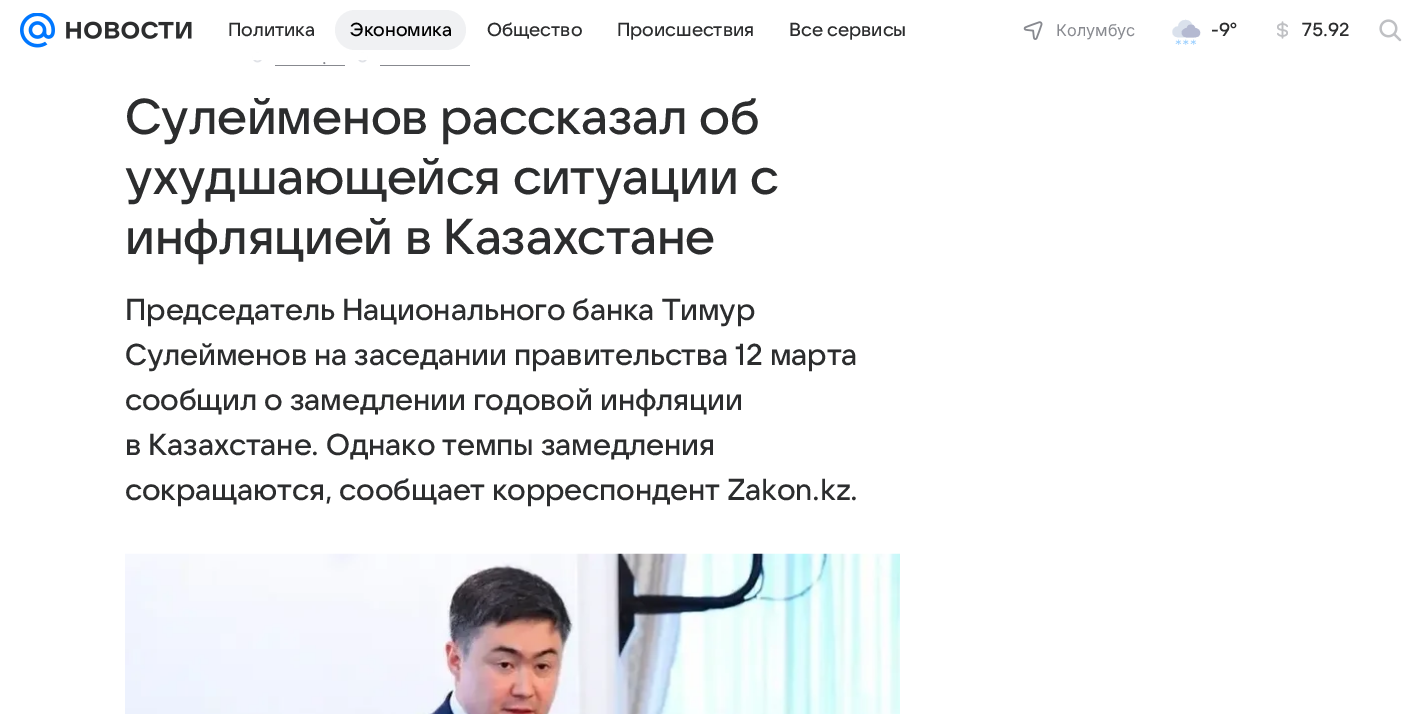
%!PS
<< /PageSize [1424 714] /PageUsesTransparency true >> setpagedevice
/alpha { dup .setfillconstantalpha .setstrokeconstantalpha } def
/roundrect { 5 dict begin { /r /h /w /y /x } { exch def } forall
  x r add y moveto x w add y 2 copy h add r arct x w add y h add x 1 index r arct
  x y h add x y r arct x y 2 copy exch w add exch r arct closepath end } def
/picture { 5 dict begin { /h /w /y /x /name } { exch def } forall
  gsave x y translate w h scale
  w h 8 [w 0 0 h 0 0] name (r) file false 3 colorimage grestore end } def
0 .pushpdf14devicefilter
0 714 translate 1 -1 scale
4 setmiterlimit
1 setgray
0 0 1424 714 rectfill
(img7.rgb) 252 52 11 11 picture
(img7.rgb) 357 52 11 11 picture
0.9 alpha
252 52 116 8 rectfill
253 53 114 7 rectfill
1 alpha
(img1.rgb) 20 13 35 35 picture
(img2.rgb) 66 21 126 18 picture
/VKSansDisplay-Medium [18.75 0 0 -18.75 0 0] selectfont
0.173 0.176 0.18 setrgbcolor
228 36 moveto (Политика) show
0.941 0.945 0.953 setrgbcolor
335 10 131 40 20 roundrect fill
0 setgray
350 36 moveto (Экономика) show
0.173 0.176 0.18 setrgbcolor
487 36 moveto (Общество) show
617 36 moveto (Происшествия) show
789 36 moveto (Все сервисы) show
(img3.rgb) 1023 21 20 19 picture
/Inter-Regular [16.25 0 0 -16.25 0 0] selectfont
0.529 0.537 0.561 setrgbcolor
1056 36 moveto (Колумбус) show
(img4.rgb) 1172 19 29 26 picture
/VKSansDisplay-Medium [18.75 0 0 -18.75 0 0] selectfont
0.173 0.176 0.18 setrgbcolor
1211 36 moveto (-9°) show
(img5.rgb) 1277 21 11 18 picture
1302 36 moveto (75.92) show
(img6.rgb) 1379 19 23 23 picture
/Inter-Regular [16.25 0 0 -16.25 0 0] selectfont
0.529 0.537 0.561 setrgbcolor
322 64 moveto (.) show
275 65 70 1 rectfill
380 65 90 1 rectfill
/VKSansDisplay-Medium [50 0 0 -50 0 0] selectfont
0.173 0.176 0.18 setrgbcolor
125 134 moveto -0.25 0 (Сулейменов рассказал об) ashow
125 194 moveto -0.25 0 (ухудшающейся ситуации с) ashow
125 254 moveto -0.25 0 (инфляцией в Казахстане) ashow
/VKSansDisplay-Medium [30 0 0 -30 0 0] selectfont
125 320 moveto -0.15 0 (Председатель Национального банка Тимур) ashow
125 365 moveto -0.15 0 (Сулейменов на заседании правительства 12 марта) ashow
125 410 moveto -0.15 0 (сообщил о замедлении годовой инфляции) ashow
125 455 moveto -0.15 0 (в Казахстане. Однако темпы замедления) ashow
125 500 moveto -0.15 0 (сокращаются, сообщает корреспондент Zakon.kz.) ashow
(img8.rgb) 125 553 775 161 picture
.poppdf14devicefilter showpage
